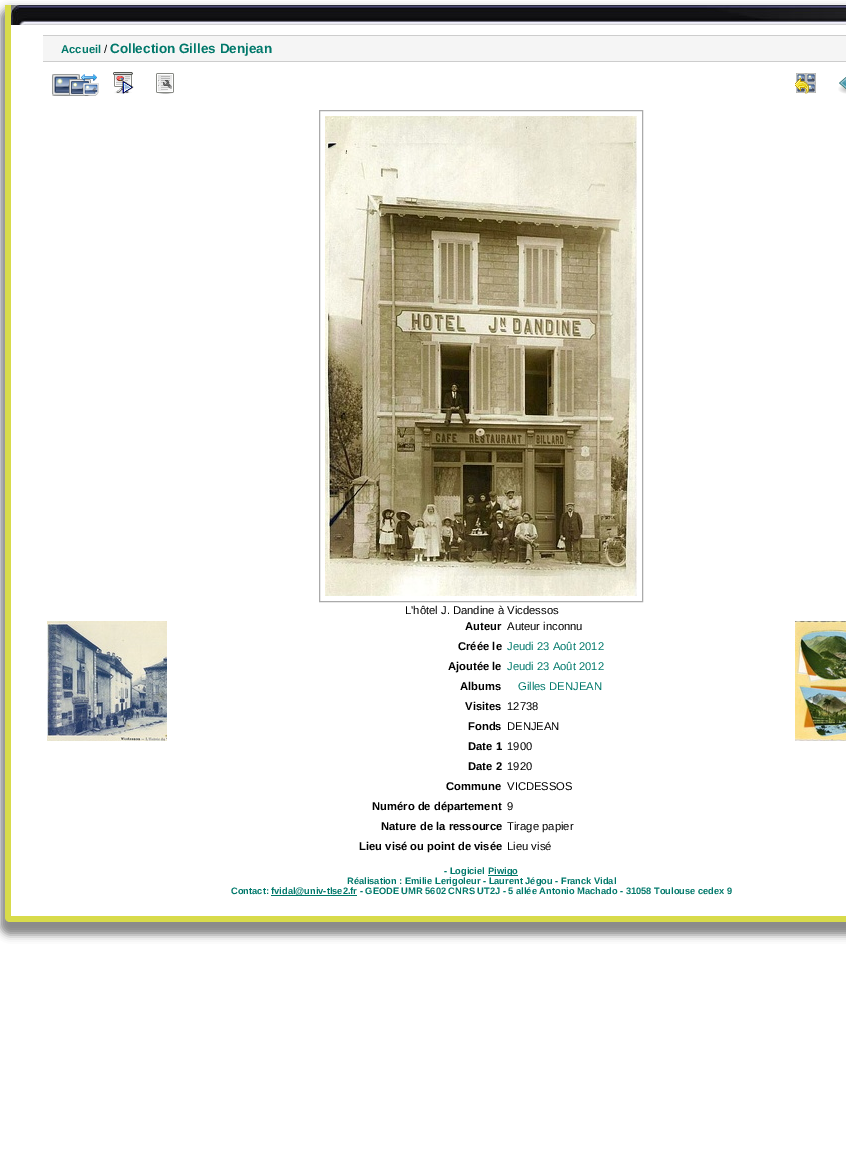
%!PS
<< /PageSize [846 1167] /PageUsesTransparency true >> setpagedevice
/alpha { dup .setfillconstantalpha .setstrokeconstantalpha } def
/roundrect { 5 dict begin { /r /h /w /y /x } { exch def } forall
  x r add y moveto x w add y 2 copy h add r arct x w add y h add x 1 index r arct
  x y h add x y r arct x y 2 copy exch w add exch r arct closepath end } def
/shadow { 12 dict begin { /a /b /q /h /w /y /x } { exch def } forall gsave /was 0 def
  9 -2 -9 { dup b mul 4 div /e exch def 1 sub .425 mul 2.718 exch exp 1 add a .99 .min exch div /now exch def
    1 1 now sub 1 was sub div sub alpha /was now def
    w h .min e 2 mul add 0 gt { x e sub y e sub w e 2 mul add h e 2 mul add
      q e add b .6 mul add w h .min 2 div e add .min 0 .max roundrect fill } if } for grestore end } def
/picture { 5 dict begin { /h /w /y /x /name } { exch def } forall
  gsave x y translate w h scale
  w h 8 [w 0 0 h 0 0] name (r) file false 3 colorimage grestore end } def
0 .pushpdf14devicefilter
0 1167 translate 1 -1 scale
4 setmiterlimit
1 setgray
0 0 846 1167 rectfill
gsave
newpath 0 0 moveto 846 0 lineto 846 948 lineto 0 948 lineto closepath 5 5 moveto 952 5 lineto 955 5 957 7 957 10 curveto 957 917 lineto 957 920 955 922 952 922 curveto 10 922 lineto 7 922 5 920 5 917 curveto closepath eoclip newpath
0.533 setgray
0 8 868 927 10 4 1 shadow
grestore
0.847 0.859 0.294 setrgbcolor
newpath 5 5 moveto 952 5 lineto 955 5 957 7 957 10 curveto 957 917 lineto 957 920 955 922 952 922 curveto 10 922 lineto 7 922 5 920 5 917 curveto closepath 11 5 moveto 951 5 lineto 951 916 lineto 11 916 lineto closepath eofill
(img1.rgb) 11 5 835 20 picture
0.961 setgray
43 36 803 25 rectfill
0.804 setgray
43 35 803 1 rectfill
43 61 803 1 rectfill
/LiberationSans-Bold [11.25 0 0 -11.25 0 0] selectfont
0 0.471 0.416 setrgbcolor
61 53 moveto (Accueil) show
/LiberationSans-Regular [11.25 0 0 -11.25 0 0] selectfont
0 setgray
104 53 moveto (/) show
/LiberationSans-Bold [13.5 0 0 -13.5 0 0] selectfont
0 0.471 0.416 setrgbcolor
110 53 moveto (Collection Gilles Denjean) show
(img2.rgb) 52 74 47 22 picture
(img3.rgb) 113 72 21 22 picture
(img4.rgb) 156 73 18 21 picture
(img5.rgb) 795 73 21 21 picture
(img6.rgb) 838 77 8 17 picture
0.667 setgray
319.5 110.5 323 491 rectstroke
(img7.rgb) 325 116 312 480 picture
/LiberationSans-Regular [11.25 0 0 -11.25 0 0] selectfont
0 setgray
405 614 moveto (L'hôtel J. Dandine à Vicdessos) show
(img8.rgb) 47 621 120 120 picture
(img9.rgb) 795 621 51 120 picture
/LiberationSans-Bold [11.25 0 0 -11.25 0 0] selectfont
465 630 moveto (Auteur) show
/LiberationSans-Regular [11.25 0 0 -11.25 0 0] selectfont
507 630 moveto (Auteur inconnu) show
/LiberationSans-Bold [11.25 0 0 -11.25 0 0] selectfont
458 650 moveto (Créée le) show
/LiberationSans-Regular [11.25 0 0 -11.25 0 0] selectfont
0 0.471 0.416 setrgbcolor
507 650 moveto (Jeudi 23 Août 2012) show
/LiberationSans-Bold [11.25 0 0 -11.25 0 0] selectfont
0 setgray
448 670 moveto (Ajoutée le) show
/LiberationSans-Regular [11.25 0 0 -11.25 0 0] selectfont
0 0.471 0.416 setrgbcolor
507 670 moveto (Jeudi 23 Août 2012) show
/LiberationSans-Bold [11.25 0 0 -11.25 0 0] selectfont
0 setgray
460 690 moveto (Albums) show
/LiberationSans-Regular [11.25 0 0 -11.25 0 0] selectfont
0 0.471 0.416 setrgbcolor
518 690 moveto (Gilles DENJEAN) show
/LiberationSans-Bold [11.25 0 0 -11.25 0 0] selectfont
0 setgray
465 710 moveto (Visites) show
/LiberationSans-Regular [11.25 0 0 -11.25 0 0] selectfont
507 710 moveto (12738) show
/LiberationSans-Bold [11.25 0 0 -11.25 0 0] selectfont
468 730 moveto (Fonds) show
/LiberationSans-Regular [11.25 0 0 -11.25 0 0] selectfont
507 730 moveto (DENJEAN) show
/LiberationSans-Bold [11.25 0 0 -11.25 0 0] selectfont
468 750 moveto (Date 1) show
/LiberationSans-Regular [11.25 0 0 -11.25 0 0] selectfont
507 750 moveto (1900) show
/LiberationSans-Bold [11.25 0 0 -11.25 0 0] selectfont
468 770 moveto (Date 2) show
/LiberationSans-Regular [11.25 0 0 -11.25 0 0] selectfont
507 770 moveto (1920) show
/LiberationSans-Bold [11.25 0 0 -11.25 0 0] selectfont
446 790 moveto (Commune) show
/LiberationSans-Regular [11.25 0 0 -11.25 0 0] selectfont
507 790 moveto (VICDESSOS) show
/LiberationSans-Bold [11.25 0 0 -11.25 0 0] selectfont
372 810 moveto (Numéro de département) show
/LiberationSans-Regular [11.25 0 0 -11.25 0 0] selectfont
507 810 moveto (9) show
/LiberationSans-Bold [11.25 0 0 -11.25 0 0] selectfont
381 830 moveto (Nature de la ressource) show
/LiberationSans-Regular [11.25 0 0 -11.25 0 0] selectfont
507 830 moveto (Tirage papier) show
/LiberationSans-Bold [11.25 0 0 -11.25 0 0] selectfont
359 850 moveto (Lieu visé ou point de visée) show
/LiberationSans-Regular [11.25 0 0 -11.25 0 0] selectfont
507 850 moveto (Lieu visé) show
/LiberationSans-Bold [9.3 0 0 -9.3 0 0] selectfont
0 0.471 0.416 setrgbcolor
444 874 moveto (- Logiciel) show
488 875 30 1 rectfill
488 874 moveto (Piwigo) show
347 884 moveto (Réalisation : Emilie Lerigoleur - Laurent Jégou - Franck Vidal) show
231 894 moveto (Contact:) show
271 895 86 1 rectfill
271 894 moveto (fvidal@univ-tlse2.fr - GEODE UMR 5602 CNRS UT2J - 5 allée Antonio Machado - 31058 Toulouse cedex 9) show
.poppdf14devicefilter showpage
